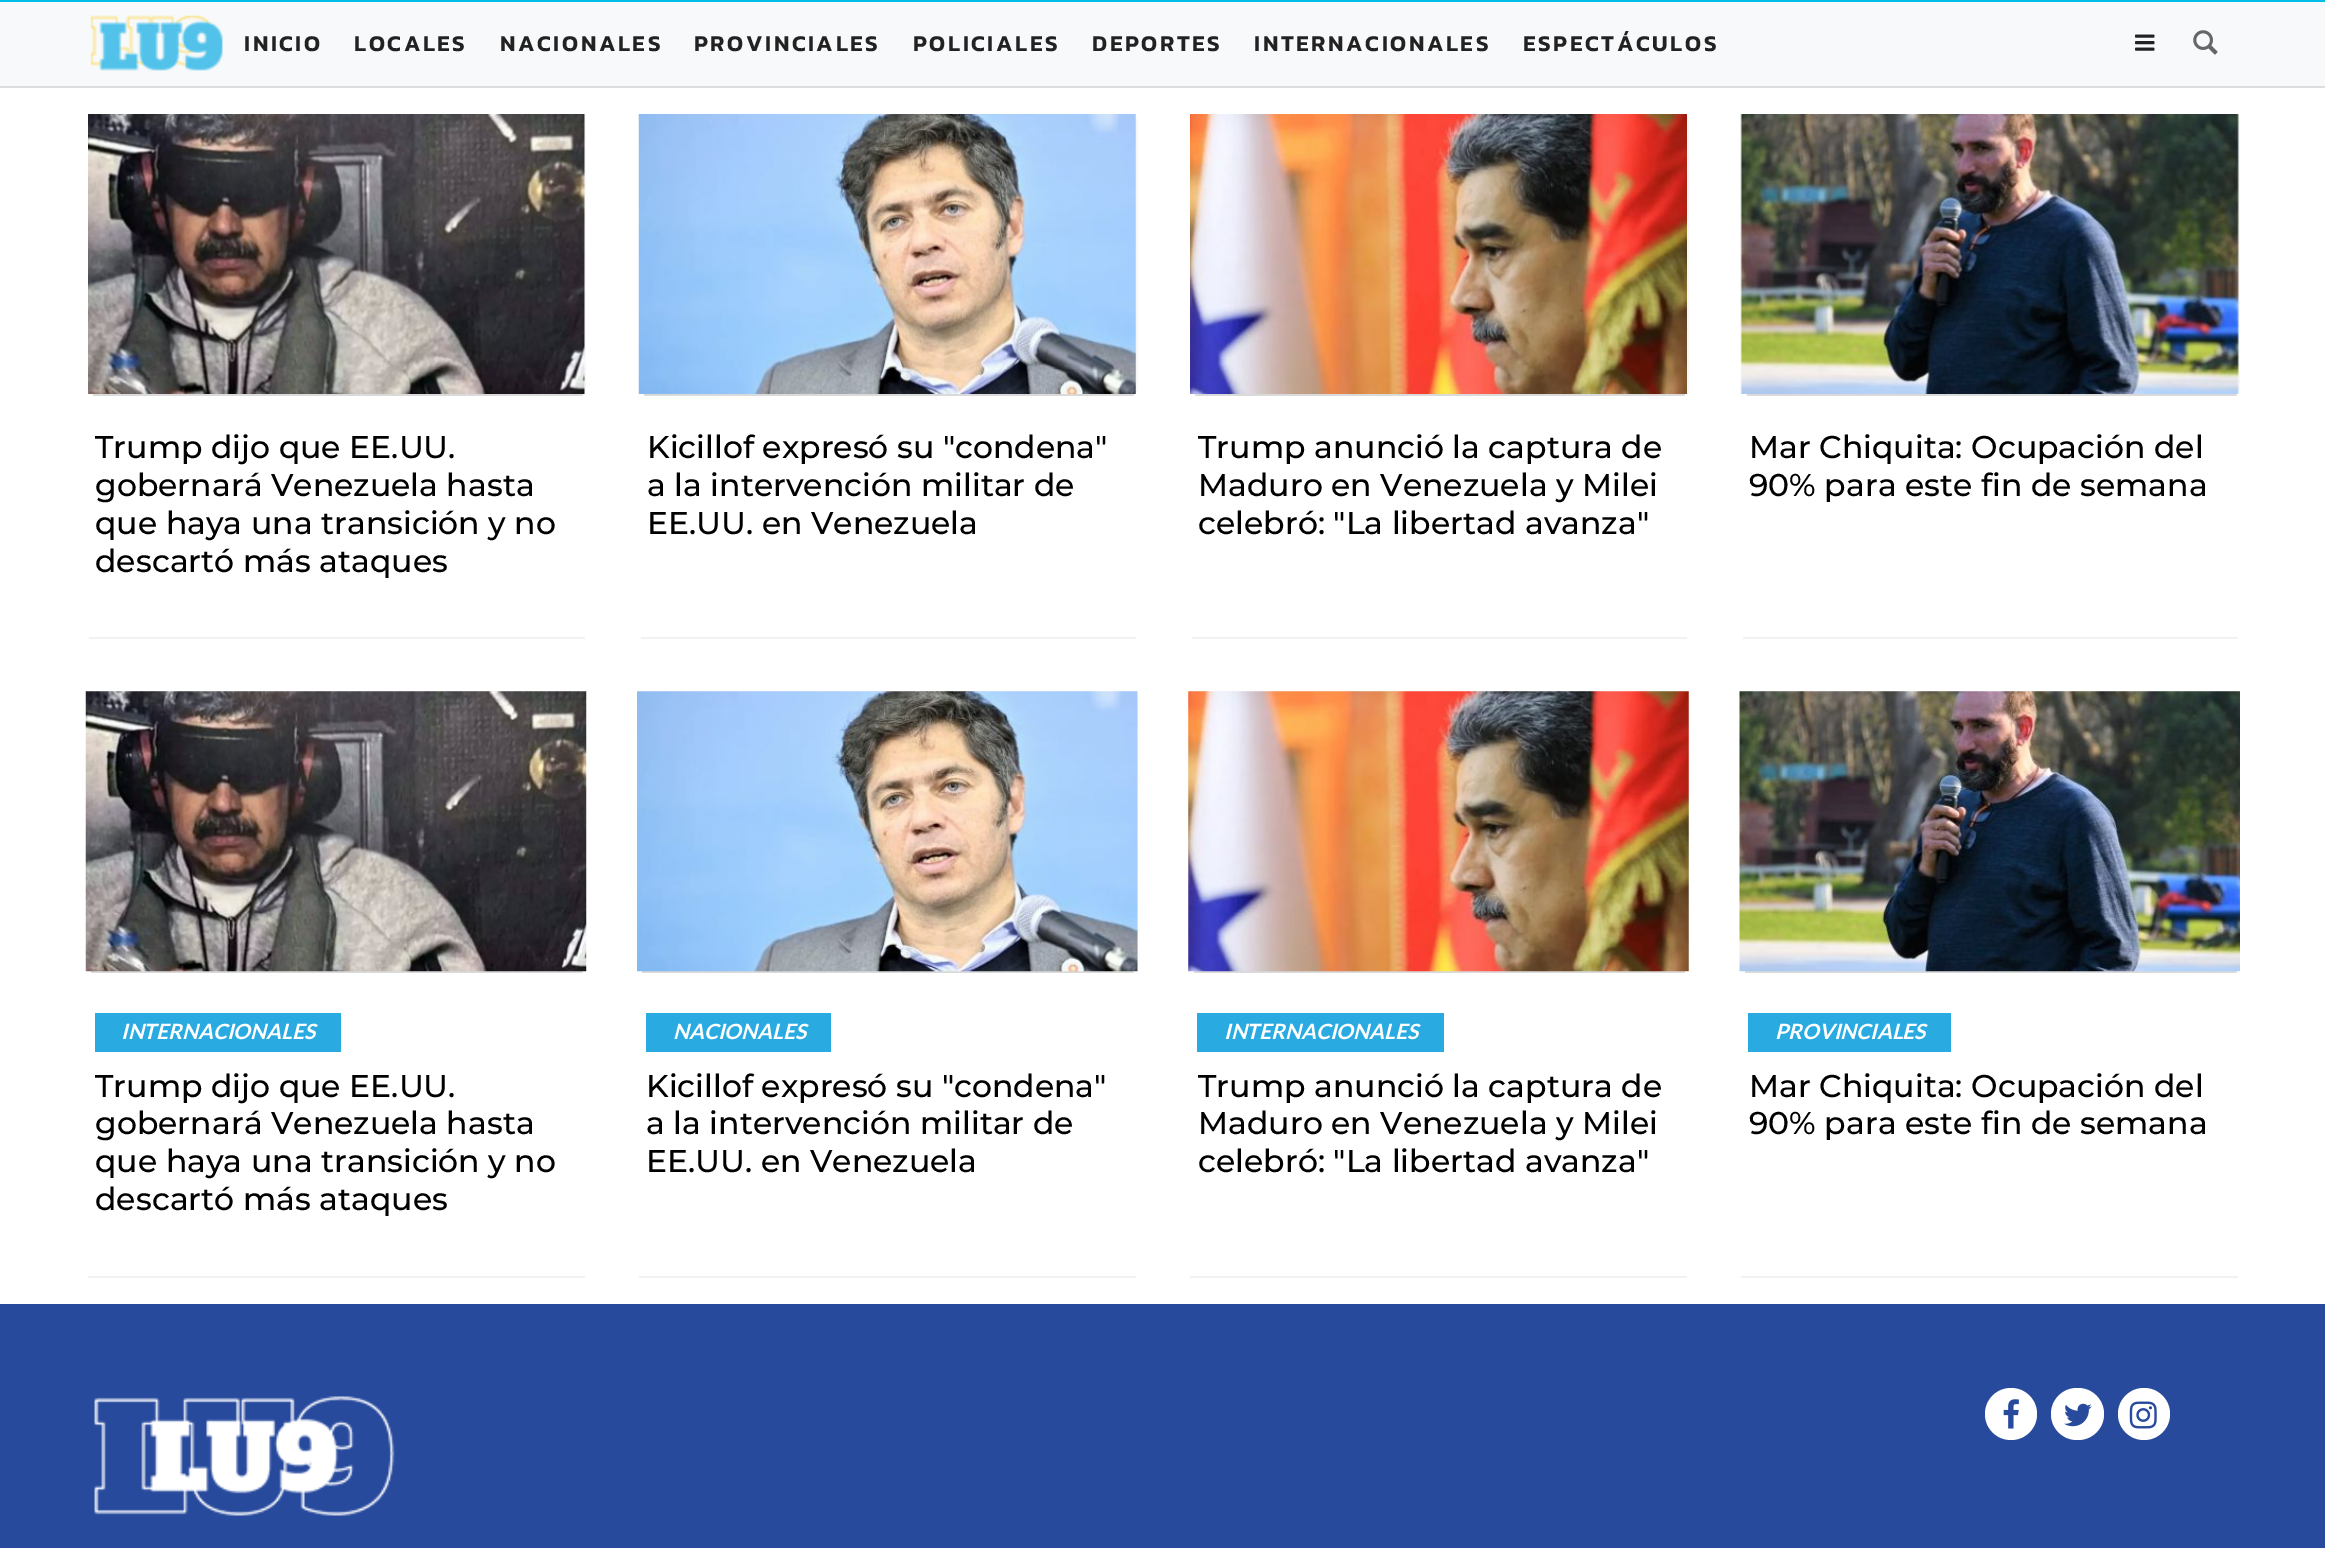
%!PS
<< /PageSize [2325 1548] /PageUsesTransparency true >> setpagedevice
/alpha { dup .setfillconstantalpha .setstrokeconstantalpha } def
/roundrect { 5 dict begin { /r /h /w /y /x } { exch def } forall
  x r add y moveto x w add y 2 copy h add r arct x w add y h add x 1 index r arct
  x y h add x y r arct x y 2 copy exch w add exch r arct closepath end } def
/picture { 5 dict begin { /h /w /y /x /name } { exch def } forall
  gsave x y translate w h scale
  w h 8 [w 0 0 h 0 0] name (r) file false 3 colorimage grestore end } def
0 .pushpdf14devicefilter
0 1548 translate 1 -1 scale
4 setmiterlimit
1 setgray
0 0 2325 1548 rectfill
0 0.745 0.898 setrgbcolor
0 0 2325 2 rectfill
0.973 0.976 0.98 setrgbcolor
0 2 2325 84 rectfill
0.863 0.867 0.871 setrgbcolor
0 86 2325 2 rectfill
(img1.rgb) 90 15 133 56 picture
/Kanit-SemiBold [22.75 0 0 -22.75 0 0] selectfont
0.133 setgray
244 51 moveto 2.6 0 (INICIO) ashow
354 51 moveto 2.6 0 (LOCALES) ashow
500 51 moveto 2.6 0 (NACIONALES) ashow
694 51 moveto 2.6 0 (PROVINCIALES) ashow
913 51 moveto 2.6 0 (POLICIALES) ashow
1092 51 moveto 2.6 0 (DEPORTES) ashow
1254 51 moveto 2.6 0 (INTERNACIONALES) ashow
1523 51 moveto 2.6 0 (ESPECTÁCULOS) ashow
(img2.rgb) 2135 34 20 17 picture
(img3.rgb) 2193 30 25 25 picture
0.949 setgray
89 637 496 2 rectfill
0.973 setgray
88 114 498 282 9 roundrect fill
0.12 alpha
0 setgray
93 394 490 2 rectfill
1 alpha
(img4.rgb) 88 114 497 280 picture
/Montserrat-Medium [31.5 0 0 -31.5 0 0] selectfont
95 458 moveto (Trump dijo que EE.UU.) show
95 496 moveto (gobernará Venezuela hasta) show
95 534 moveto (que haya una transición y no) show
95 572 moveto (descartó más ataques) show
0.949 setgray
641 637 495 2 rectfill
0.973 setgray
639 114 499 282 9 roundrect fill
0.12 alpha
0 setgray
644 394 490 2 rectfill
1 alpha
(img5.rgb) 638 114 498 280 picture
647 458 moveto (Kicillof expresó su "condena") show
647 496 moveto (a la intervención militar de) show
647 534 moveto (EE.UU. en Venezuela) show
0.949 setgray
1192 637 495 2 rectfill
0.973 setgray
1190 114 499 282 9 roundrect fill
0.12 alpha
0 setgray
1195 394 490 2 rectfill
1 alpha
(img6.rgb) 1190 114 497 280 picture
1198 458 moveto (Trump anunció la captura de) show
1198 496 moveto (Maduro en Venezuela y Milei) show
1198 534 moveto (celebró: "La libertad avanza") show
0.949 setgray
1743 637 495 2 rectfill
0.973 setgray
1741 114 499 282 9 roundrect fill
0.12 alpha
0 setgray
1747 394 490 2 rectfill
1 alpha
(img7.rgb) 1740 114 499 280 picture
1749 458 moveto (Mar Chiquita: Ocupación del) show
1749 496 moveto (90% para este fin de semana) show
0.949 setgray
88 1276 497 2 rectfill
0.973 setgray
86 691 500 282 9 roundrect fill
0.12 alpha
0 setgray
91 971 492 2 rectfill
1 alpha
(img8.rgb) 85 691 502 281 picture
0.161 0.671 0.886 setrgbcolor
95 1013 246 39 rectfill
/Lato-BoldItalic [21 0 0 -21 0 0] selectfont
1 setgray
121 1039 moveto (INTERNACIONALES) show
/Montserrat-Medium [31.5 0 0 -31.5 0 0] selectfont
0 setgray
95 1097 moveto (Trump dijo que EE.UU.) show
95 1134 moveto (gobernará Venezuela hasta) show
95 1172 moveto (que haya una transición y no) show
95 1210 moveto (descartó más ataques) show
0.949 setgray
639 1276 497 2 rectfill
0.973 setgray
637 691 501 282 9 roundrect fill
0.12 alpha
0 setgray
642 971 492 2 rectfill
1 alpha
(img9.rgb) 637 691 501 281 picture
0.161 0.671 0.886 setrgbcolor
646 1013 185 39 rectfill
/Lato-BoldItalic [21 0 0 -21 0 0] selectfont
1 setgray
673 1039 moveto (NACIONALES) show
/Montserrat-Medium [31.5 0 0 -31.5 0 0] selectfont
0 setgray
646 1097 moveto (Kicillof expresó su "condena") show
646 1134 moveto (a la intervención militar de) show
646 1172 moveto (EE.UU. en Venezuela) show
0.949 setgray
1190 1276 497 2 rectfill
0.973 setgray
1188 691 501 282 9 roundrect fill
0.12 alpha
0 setgray
1194 971 491 2 rectfill
1 alpha
(img10.rgb) 1188 691 501 281 picture
0.161 0.671 0.886 setrgbcolor
1197 1013 247 39 rectfill
/Lato-BoldItalic [21 0 0 -21 0 0] selectfont
1 setgray
1224 1039 moveto (INTERNACIONALES) show
/Montserrat-Medium [31.5 0 0 -31.5 0 0] selectfont
0 setgray
1198 1097 moveto (Trump anunció la captura de) show
1198 1134 moveto (Maduro en Venezuela y Milei) show
1198 1172 moveto (celebró: "La libertad avanza") show
0.949 setgray
1741 1276 497 2 rectfill
0.973 setgray
1740 691 500 282 9 roundrect fill
0.12 alpha
0 setgray
1745 971 492 2 rectfill
1 alpha
(img11.rgb) 1739 691 501 281 picture
0.161 0.671 0.886 setrgbcolor
1748 1013 203 39 rectfill
/Lato-BoldItalic [21 0 0 -21 0 0] selectfont
1 setgray
1775 1039 moveto (PROVINCIALES) show
/Montserrat-Medium [31.5 0 0 -31.5 0 0] selectfont
0 setgray
1749 1097 moveto (Mar Chiquita: Ocupación del) show
1749 1134 moveto (90% para este fin de semana) show
0.157 0.29 0.616 setrgbcolor
0 1304 2325 244 rectfill
(img12.rgb) 94 1396 301 120 picture
1 setgray
newpath 2011 1414 26 0 360 arc closepath fill
(img13.rgb) 2003 1399 16 30 picture
2051 1388 53 52 26 roundrect fill
(img14.rgb) 2064 1403 28 24 picture
newpath 2144 1414 26 0 360 arc closepath fill
(img15.rgb) 2129 1401 28 28 picture
.poppdf14devicefilter showpage
